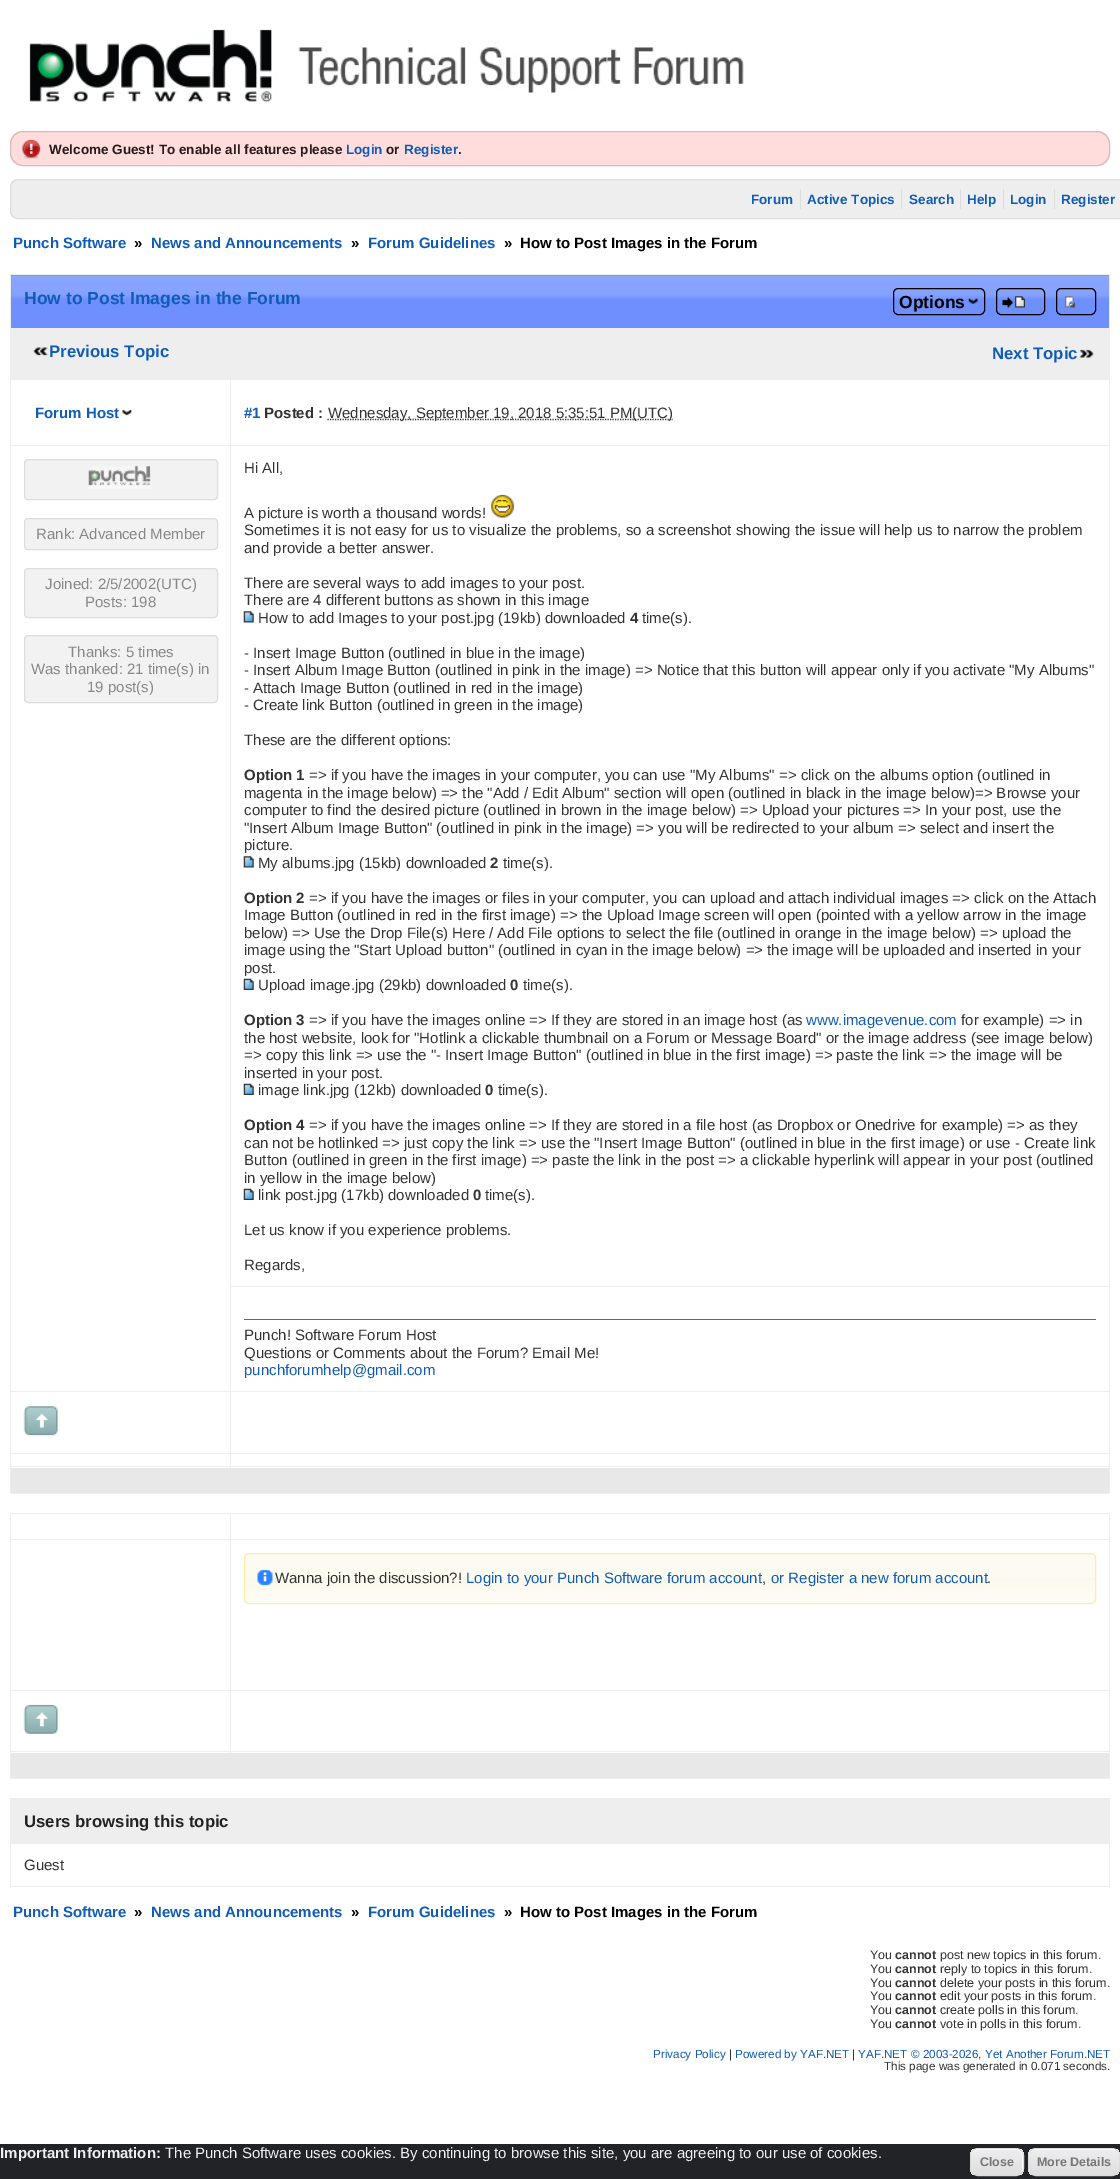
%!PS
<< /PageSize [1120 2179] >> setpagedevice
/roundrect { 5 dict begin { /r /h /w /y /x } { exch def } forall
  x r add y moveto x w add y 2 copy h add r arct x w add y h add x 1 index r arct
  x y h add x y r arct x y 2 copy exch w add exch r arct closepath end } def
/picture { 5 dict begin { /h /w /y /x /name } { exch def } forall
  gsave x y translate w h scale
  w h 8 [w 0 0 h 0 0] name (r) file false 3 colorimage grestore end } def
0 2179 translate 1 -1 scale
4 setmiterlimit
1 setgray
0 0 1120 2179 rectfill
(img1.rgb) 29 29 715 73 picture
1 0.867 0.867 setrgbcolor
10 131 1100 35 13 roundrect fill
(img2.rgb) 22 139 19 20 picture
0.871 0.718 0.718 setrgbcolor
10.5 131.5 1099 34 12.5 roundrect stroke
/LiberationSans-Bold [13.5 0 0 -13.5 0 0] selectfont
0.157 0.106 0.106 setrgbcolor
49 154 moveto (Welcome Guest! To enable all features please) show
0.063 0.361 0.714 setrgbcolor
346 154 moveto (Login) show
0.157 0.106 0.106 setrgbcolor
386 154 moveto (or) show
0.063 0.361 0.714 setrgbcolor
404 154 moveto (Register) show
0.157 0.106 0.106 setrgbcolor
458 154 moveto (.) show
0.933 setgray
10.5 179.5 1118 39 7.5 roundrect gsave fill grestore
0.867 setgray
stroke
0.063 0.361 0.714 setrgbcolor
751 204 moveto (Forum) show
807 204 moveto (Active Topics) show
0.867 setgray
800 189 1 20 rectfill
0.063 0.361 0.714 setrgbcolor
909 204 moveto (Search) show
0.867 setgray
901 189 1 20 rectfill
0.063 0.361 0.714 setrgbcolor
967 204 moveto (Help) show
0.867 setgray
960 189 1 20 rectfill
0.063 0.361 0.714 setrgbcolor
1010 204 moveto (Login) show
0.867 setgray
1003 189 1 20 rectfill
0.063 0.361 0.714 setrgbcolor
1061 204 moveto (Register) show
0.867 setgray
1054 189 1 20 rectfill
/LiberationSans-Bold [15 0 0 -15 0 0] selectfont
0.063 0.361 0.714 setrgbcolor
13 248 moveto (Punch Software) show
0 setgray
134 248 moveto (») show
0.063 0.361 0.714 setrgbcolor
151 248 moveto (News and Announcements) show
0 setgray
351 248 moveto (») show
0.063 0.361 0.714 setrgbcolor
368 248 moveto (Forum Guidelines) show
0 setgray
504 248 moveto (») show
520 248 moveto (How to Post Images in the Forum) show
0.439 0.561 1 setrgbcolor
11 275 1098 53 rectfill
(img3.rgb) 11 275 1098 31 picture
0.933 setgray
10 274 1100 1 rectfill
10 328 1100 1 rectfill
1109 274 1 55 rectfill
10 378 1100 1 rectfill
10 328 1 51 rectfill
10 274 1 55 rectfill
/LiberationSans-Bold [17.5 0 0 -17.5 0 0] selectfont
0.063 0.361 0.714 setrgbcolor
24 304 moveto (How to Post Images in the Forum) show
(img4.rgb) 968 298 10 6 picture
0 setgray
893.5 288.5 91 26 4.5 roundrect stroke
899 308 moveto (Options) show
996.5 288.5 48 26 4.5 roundrect stroke
(img5.rgb) 1002 296 23 12 picture
1056.5 288.5 39 26 4.5 roundrect stroke
(img6.rgb) 1064 296 12 12 picture
0.933 setgray
11 329 1099 49 rectfill
(img7.rgb) 33 347 15 9 picture
/LiberationSans-Bold [16.75 0 0 -16.75 0 0] selectfont
0.063 0.361 0.714 setrgbcolor
49 357 moveto (Previous Topic) show
(img8.rgb) 1079 349 15 9 picture
992 359 moveto (Next Topic) show
0.933 setgray
230 379 880 1 rectfill
230 445 880 1 rectfill
230 1391 880 1 rectfill
230 1453 880 1 rectfill
10 1466 1100 1 rectfill
1109 1466 1 28 rectfill
1109 1453 1 15 rectfill
1109 1286 1 168 rectfill
1109 445 1 843 rectfill
230 1453 1 15 rectfill
10 1453 221 1 rectfill
230 1391 1 63 rectfill
10 1391 221 1 rectfill
230 1286 1 107 rectfill
230 1286 880 1 rectfill
230 445 1 843 rectfill
10 445 221 1 rectfill
230 379 1 67 rectfill
10 379 221 1 rectfill
10 1493 1100 1 rectfill
10 1466 1 28 rectfill
10 1453 1 15 rectfill
10 1391 1 63 rectfill
10 445 1 948 rectfill
10 379 1 67 rectfill
/LiberationSans-Bold [15 0 0 -15 0 0] selectfont
0.063 0.361 0.714 setrgbcolor
35 418 moveto (Forum Host) show
(img9.rgb) 122 409 10 7 picture
0.933 setgray
1109 379 1 67 rectfill
0.063 0.361 0.714 setrgbcolor
244 418 moveto (#1) show
0.2 setgray
264 418 moveto (Posted :) show
1.2 setlinewidth
[1.25 1.25] 0 setdash
newpath 327.5 419.5 moveto 673 419.5 lineto stroke
/LiberationSans-Regular [15 0 0 -15 0 0] selectfont
328 418 moveto (Wednesday, September 19, 2018 5:35:51 PM\(UTC\)) show
0.949 setgray
24.5 459.5 193 40 3.5 roundrect gsave fill grestore
0.867 setgray
1 setlinewidth
[] 0 setdash
stroke
(img10.rgb) 88 466 63 23 picture
0.949 setgray
24.5 518.5 193 31 3.5 roundrect gsave fill grestore
0.867 setgray
stroke
0.533 setgray
36 539 moveto (Rank: Advanced Member) show
0.949 setgray
24.5 568.5 193 49 3.5 roundrect gsave fill grestore
0.867 setgray
stroke
0.533 setgray
45 589 moveto (Joined: 2/5/2002\(UTC\)) show
85 607 moveto (Posts: 198) show
0.949 setgray
24.5 635.5 193 67 3.5 roundrect gsave fill grestore
0.867 setgray
stroke
0.533 setgray
68 657 moveto (Thanks: 5 times) show
31 674 moveto (Was thanked: 21 time\(s\) in) show
87 692 moveto (19 post\(s\)) show
0.2 setgray
244 473 moveto (Hi All,) show
244 518 moveto (A picture is worth a thousand words!) show
(img11.rgb) 491 494 23 24 picture
244 535 moveto (Sometimes it is not easy for us to visualize the problems, so a screenshot showing the issue will help us to narrow the problem) show
244 553 moveto (and provide a better answer.) show
244 588 moveto (There are several ways to add images to your post.) show
244 605 moveto (There are 4 different buttons as shown in this image) show
(img12.rgb) 243 611 11 12 picture
258 623 moveto (How to add Images to your post.jpg \(19kb\) downloaded) show
/LiberationSans-Bold [15 0 0 -15 0 0] selectfont
630 623 moveto (4) show
/LiberationSans-Regular [15 0 0 -15 0 0] selectfont
642 623 moveto (time\(s\).) show
244 658 moveto (- Insert Image Button \(outlined in blue in the image\)) show
244 675 moveto (- Insert Album Image Button \(outlined in pink in the image\) => Notice that this button will appear only if you activate "My Albums") show
244 693 moveto (- Attach Image Button \(outlined in red in the image\)) show
244 710 moveto (- Create link Button \(outlined in green in the image\)) show
244 745 moveto (These are the different options:) show
/LiberationSans-Bold [15 0 0 -15 0 0] selectfont
244 780 moveto (Option 1) show
/LiberationSans-Regular [15 0 0 -15 0 0] selectfont
309 780 moveto (=> if you have the images in your computer, you can use "My Albums" => click on the albums option \(outlined in) show
244 798 moveto (magenta in the image below\) => the "Add / Edit Album" section will open \(outlined in black in the image below\)=> Browse your) show
244 815 moveto (computer to find the desired picture \(outlined in brown in the image below\) => Upload your pictures => In your post, use the) show
244 833 moveto ("Insert Album Image Button" \(outlined in pink in the image\) => you will be redirected to your album => select and insert the) show
244 850 moveto (picture.) show
(img12.rgb) 243 856 11 12 picture
258 868 moveto (My albums.jpg \(15kb\) downloaded) show
/LiberationSans-Bold [15 0 0 -15 0 0] selectfont
490 868 moveto (2) show
/LiberationSans-Regular [15 0 0 -15 0 0] selectfont
503 868 moveto (time\(s\).) show
/LiberationSans-Bold [15 0 0 -15 0 0] selectfont
244 903 moveto (Option 2) show
/LiberationSans-Regular [15 0 0 -15 0 0] selectfont
309 903 moveto (=> if you have the images or files in your computer, you can upload and attach individual images => click on the Attach) show
244 920 moveto (Image Button \(outlined in red in the first image\) => the Upload Image screen will open \(pointed with a yellow arrow in the image) show
244 938 moveto (below\) => Use the Drop File\(s\) Here / Add File options to select the file \(outlined in orange in the image below\) => upload the) show
244 955 moveto (image using the "Start Upload button" \(outlined in cyan in the image below\) => the image will be uploaded and inserted in your) show
244 973 moveto (post.) show
(img13.rgb) 243 978 11 12 picture
258 990 moveto (Upload image.jpg \(29kb\) downloaded) show
/LiberationSans-Bold [15 0 0 -15 0 0] selectfont
510 990 moveto (0) show
/LiberationSans-Regular [15 0 0 -15 0 0] selectfont
523 990 moveto (time\(s\).) show
/LiberationSans-Bold [15 0 0 -15 0 0] selectfont
244 1025 moveto (Option 3) show
/LiberationSans-Regular [15 0 0 -15 0 0] selectfont
309 1025 moveto (=> if you have the images online => If they are stored in an image host \(as) show
0.063 0.361 0.714 setrgbcolor
806 1025 moveto (www.imagevenue.com) show
0.2 setgray
961 1025 moveto (for example\) => in) show
244 1043 moveto (the host website, look for "Hotlink a clickable thumbnail on a Forum or Message Board" or the image address \(see image below\)) show
244 1060 moveto (=> copy this link => use the "- Insert Image Button" \(outlined in blue in the first image\) => paste the link => the image will be) show
244 1078 moveto (inserted in your post.) show
(img13.rgb) 243 1083 11 12 picture
258 1095 moveto (image link.jpg \(12kb\) downloaded) show
/LiberationSans-Bold [15 0 0 -15 0 0] selectfont
485 1095 moveto (0) show
/LiberationSans-Regular [15 0 0 -15 0 0] selectfont
498 1095 moveto (time\(s\).) show
/LiberationSans-Bold [15 0 0 -15 0 0] selectfont
244 1130 moveto (Option 4) show
/LiberationSans-Regular [15 0 0 -15 0 0] selectfont
309 1130 moveto (=> if you have the images online => If they are stored in a file host \(as Dropbox or Onedrive for example\) => as they) show
244 1148 moveto (can not be hotlinked => just copy the link => use the "Insert Image Button" \(outlined in blue in the first image\) or use - Create link) show
244 1165 moveto (Button \(outlined in green in the first image\) => paste the link in the post => a clickable hyperlink will appear in your post \(outlined) show
244 1183 moveto (in yellow in the image below\)) show
(img13.rgb) 243 1188 11 12 picture
258 1200 moveto (link post.jpg \(17kb\) downloaded) show
/LiberationSans-Bold [15 0 0 -15 0 0] selectfont
473 1200 moveto (0) show
/LiberationSans-Regular [15 0 0 -15 0 0] selectfont
485 1200 moveto (time\(s\).) show
244 1235 moveto (Let us know if you experience problems.) show
244 1270 moveto (Regards,) show
(img14.rgb) 23 1406 35 30 picture
0.4 setgray
244 1319 852 1 rectfill
0.2 setgray
244 1340 moveto (Punch! Software Forum Host) show
244 1358 moveto (Questions or Comments about the Forum? Email Me!) show
0.063 0.361 0.714 setrgbcolor
244 1375 moveto (punchforumhelp@gmail.com) show
0.91 setgray
11 1468 1098 25 rectfill
0.933 setgray
230 1513 880 1 rectfill
230 1539 880 1 rectfill
230 1690 880 1 rectfill
10 1751 1100 1 rectfill
230 1690 1 63 rectfill
10 1690 221 1 rectfill
230 1539 1 152 rectfill
10 1539 221 1 rectfill
230 1513 1 27 rectfill
10 1513 221 1 rectfill
1109 1751 1 28 rectfill
10 1778 1100 1 rectfill
10 1751 1 28 rectfill
10 1690 1 63 rectfill
10 1539 1 152 rectfill
10 1513 1 27 rectfill
1109 1690 1 63 rectfill
1109 1539 1 152 rectfill
1109 1513 1 27 rectfill
(img15.rgb) 244 1553 852 50 picture
0.988 0.937 0.631 setrgbcolor
244.5 1553.5 851 50 4.5 roundrect stroke
(img16.rgb) 257 1569 16 17 picture
0.2 setgray
275 1583 moveto (Wanna join the discussion?!) show
0.063 0.361 0.714 setrgbcolor
466 1583 moveto (Login to your Punch Software forum account) show
0.2 setgray
762 1583 moveto (,) show
0.063 0.361 0.714 setrgbcolor
771 1583 moveto (or Register a new forum account) show
0.2 setgray
987 1583 moveto (.) show
(img17.rgb) 23 1704 35 30 picture
0.91 setgray
11 1753 1098 25 rectfill
0.933 setgray
11 1799 1099 44 rectfill
10 1798 1100 1 rectfill
10 1843 1100 1 rectfill
1109 1843 1 45 rectfill
10 1886 1100 1 rectfill
10 1843 1 45 rectfill
10 1798 1 46 rectfill
/LiberationSans-Bold [16.75 0 0 -16.75 0 0] selectfont
0.133 setgray
24 1827 moveto (Users browsing this topic) show
/LiberationSans-Regular [15 0 0 -15 0 0] selectfont
0.2 setgray
24 1870 moveto (Guest) show
/LiberationSans-Bold [15 0 0 -15 0 0] selectfont
0.063 0.361 0.714 setrgbcolor
13 1917 moveto (Punch Software) show
0 setgray
134 1917 moveto (») show
0.063 0.361 0.714 setrgbcolor
151 1917 moveto (News and Announcements) show
0 setgray
351 1917 moveto (») show
0.063 0.361 0.714 setrgbcolor
368 1917 moveto (Forum Guidelines) show
0 setgray
504 1917 moveto (») show
520 1917 moveto (How to Post Images in the Forum) show
/LiberationSans-Regular [12.5 0 0 -12.5 0 0] selectfont
0.2 setgray
870 1959 moveto (You) show
/LiberationSans-Bold [12.5 0 0 -12.5 0 0] selectfont
895 1959 moveto (cannot) show
/LiberationSans-Regular [12.5 0 0 -12.5 0 0] selectfont
940 1959 moveto (post new topics in this forum.) show
870 1973 moveto (You) show
/LiberationSans-Bold [12.5 0 0 -12.5 0 0] selectfont
895 1973 moveto (cannot) show
/LiberationSans-Regular [12.5 0 0 -12.5 0 0] selectfont
940 1973 moveto (reply to topics in this forum.) show
870 1987 moveto (You) show
/LiberationSans-Bold [12.5 0 0 -12.5 0 0] selectfont
895 1987 moveto (cannot) show
/LiberationSans-Regular [12.5 0 0 -12.5 0 0] selectfont
940 1987 moveto (delete your posts in this forum.) show
870 2000 moveto (You) show
/LiberationSans-Bold [12.5 0 0 -12.5 0 0] selectfont
895 2000 moveto (cannot) show
/LiberationSans-Regular [12.5 0 0 -12.5 0 0] selectfont
940 2000 moveto (edit your posts in this forum.) show
870 2014 moveto (You) show
/LiberationSans-Bold [12.5 0 0 -12.5 0 0] selectfont
895 2014 moveto (cannot) show
/LiberationSans-Regular [12.5 0 0 -12.5 0 0] selectfont
940 2014 moveto (create polls in this forum.) show
870 2028 moveto (You) show
/LiberationSans-Bold [12.5 0 0 -12.5 0 0] selectfont
895 2028 moveto (cannot) show
/LiberationSans-Regular [12.5 0 0 -12.5 0 0] selectfont
940 2028 moveto (vote in polls in this forum.) show
/LiberationSans-Regular [11.7 0 0 -11.7 0 0] selectfont
0.063 0.361 0.714 setrgbcolor
653 2058 moveto (Privacy Policy) show
0.2 setgray
729 2058 moveto (|) show
0.063 0.361 0.714 setrgbcolor
735 2058 moveto (Powered by YAF.NET) show
0.2 setgray
852 2058 moveto (|) show
0.063 0.361 0.714 setrgbcolor
858 2058 moveto (YAF.NET © 2003-2026, Yet Another Forum.NET) show
0.2 setgray
884 2070 moveto (This page was generated in 0.071 seconds.) show
0.129 0.137 0.153 setrgbcolor
0 2144 1120 35 rectfill
/LiberationSans-Bold [15 0 0 -15 0 0] selectfont
0.925 0.941 0.945 setrgbcolor
0 2158 moveto (Important Information:) show
/LiberationSans-Regular [15 0 0 -15 0 0] selectfont
165 2158 moveto (The Punch Software uses cookies. By continuing to browse this site, you are agreeing to our use of cookies.) show
gsave
970 2148 54 28 8 roundrect clip newpath
gsave newpath 970 2149 moveto 1024 2149 lineto 1024 2175 lineto 970 2175 lineto closepath clip newpath
<< /ShadingType 2 /ColorSpace /DeviceRGB /Coords [971 2149 971 2175] /Extend [true true] /Function << /FunctionType 3 /Domain [0 1] /Functions [<< /FunctionType 2 /Domain [0 1] /C0 [0.929 0.929 0.929] /C1 [0.929 0.929 0.929] /N 1 >> << /FunctionType 2 /Domain [0 1] /C0 [0.929 0.929 0.929] /C1 [0.875 0.875 0.875] /N 1 >>] /Bounds [0.05] /Encode [0 1 0 1] >> >> shfill grestore
grestore
1 setgray
newpath 978 2150 moveto 1016 2150 lineto 1020 2150 1022 2153 1022 2156 curveto 1022 2170 lineto 1022 2171 1022 2172 1021 2173 curveto 1024 2171 1023 2166 1023 2162 curveto 1023 2150 1023 2149 1010 2149 curveto 984 2149 lineto 977 2149 971 2148 971 2156 curveto 971 2153 974 2150 978 2150 curveto closepath fill
0.863 setgray
970.5 2148.5 53 27 7.5 roundrect stroke
/LiberationSans-Bold [12.5 0 0 -12.5 0 0] selectfont
0.467 setgray
980 2166 moveto (Close) show
gsave
1028 2148 92 28 8 roundrect clip newpath
gsave newpath 1028 2149 moveto 1120 2149 lineto 1120 2175 lineto 1028 2175 lineto closepath clip newpath
<< /ShadingType 2 /ColorSpace /DeviceRGB /Coords [1029 2149 1029 2175] /Extend [true true] /Function << /FunctionType 3 /Domain [0 1] /Functions [<< /FunctionType 2 /Domain [0 1] /C0 [0.929 0.929 0.929] /C1 [0.929 0.929 0.929] /N 1 >> << /FunctionType 2 /Domain [0 1] /C0 [0.929 0.929 0.929] /C1 [0.875 0.875 0.875] /N 1 >>] /Bounds [0.05] /Encode [0 1 0 1] >> >> shfill grestore
grestore
1 setgray
newpath 1035 2150 moveto 1112 2150 lineto 1116 2150 1119 2153 1119 2156 curveto 1119 2146 1107 2149 1100 2149 curveto 1048 2149 lineto 1041 2149 1029 2146 1029 2156 curveto 1029 2153 1032 2150 1035 2150 curveto closepath fill
0.863 setgray
1028.5 2148.5 91 27 7.5 roundrect stroke
0.467 setgray
1037 2166 moveto (More Details) show
showpage
